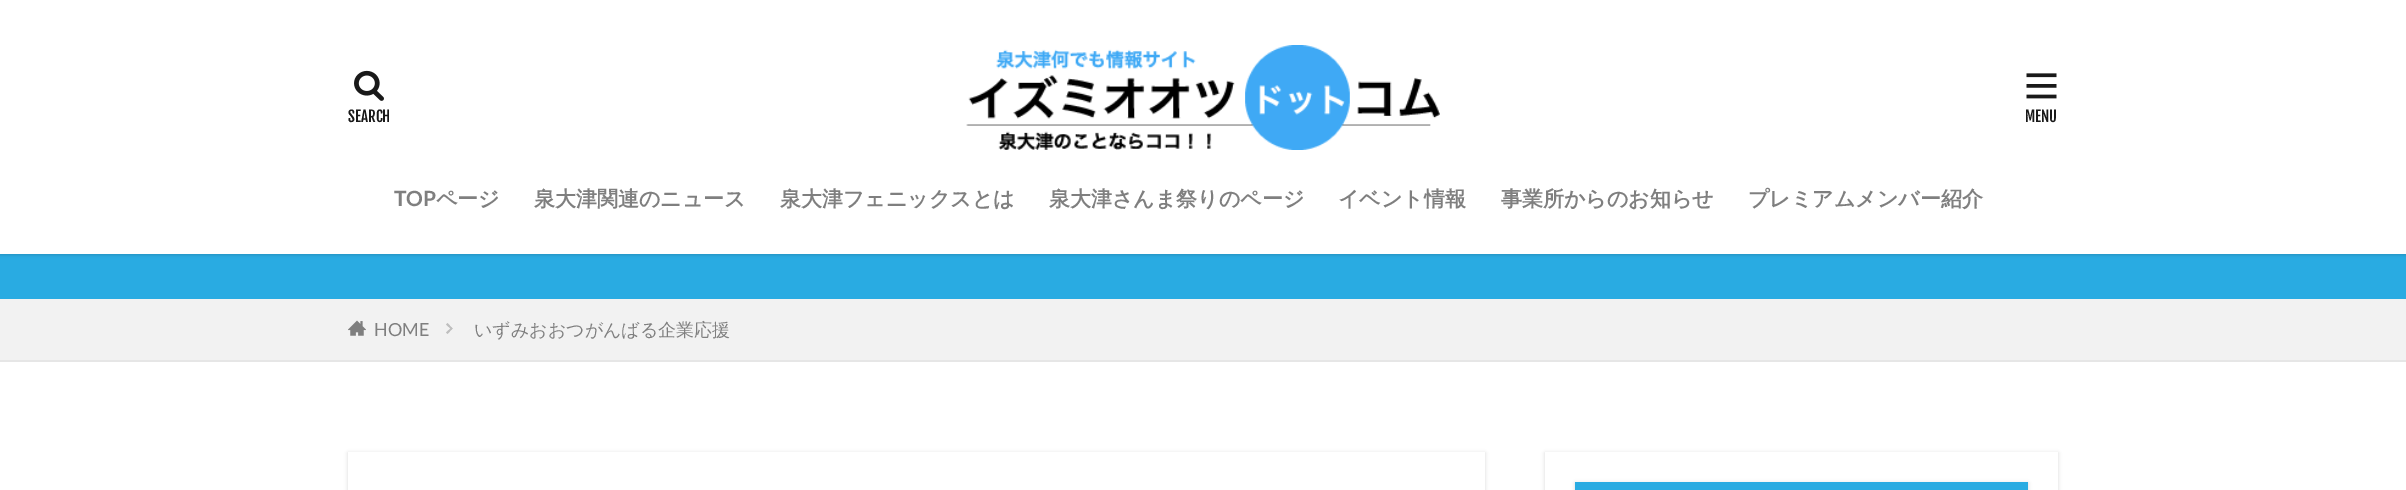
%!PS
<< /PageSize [2406 490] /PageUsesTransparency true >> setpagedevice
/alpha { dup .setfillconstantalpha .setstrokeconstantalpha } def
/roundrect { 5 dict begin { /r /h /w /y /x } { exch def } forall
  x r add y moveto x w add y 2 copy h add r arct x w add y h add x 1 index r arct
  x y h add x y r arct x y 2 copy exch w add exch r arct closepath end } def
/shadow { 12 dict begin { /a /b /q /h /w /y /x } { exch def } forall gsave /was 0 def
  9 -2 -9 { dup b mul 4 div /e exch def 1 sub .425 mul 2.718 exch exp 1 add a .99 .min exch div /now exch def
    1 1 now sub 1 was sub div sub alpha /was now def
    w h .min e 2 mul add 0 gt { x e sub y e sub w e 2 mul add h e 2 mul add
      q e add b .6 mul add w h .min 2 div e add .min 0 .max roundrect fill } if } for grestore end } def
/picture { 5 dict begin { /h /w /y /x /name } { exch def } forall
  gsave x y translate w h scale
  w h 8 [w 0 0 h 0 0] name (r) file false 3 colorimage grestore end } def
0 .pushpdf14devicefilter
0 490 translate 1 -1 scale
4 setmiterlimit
1 setgray
0 0 2406 490 rectfill
0.161 0.671 0.886 setrgbcolor
0 254 2406 45 rectfill
0 setgray
0 2 2406 253 0 1.5 0.15 shadow
1 setgray
0 0 2406 254 rectfill
(img1.rgb) 354 70 30 31 picture
/FjallaOne-Regular [15 0 0 -15 0 0] selectfont
0.098 setgray
348 122 moveto (SEARCH) show
(img2.rgb) 966 45 474 105 picture
(img3.rgb) 2026 73 31 26 picture
2025 122 moveto (MENU) show
/Lato-Bold [21 0 0 -21 0 0] selectfont
0.498 setgray
394 206 moveto (TOP) show
/WenQuanYiZenHei-Bold [21 0 0 -21 0 0] selectfont
436 206 moveto (ページ) show
534 206 moveto (泉大津関連のニュース) show
780 206 moveto (泉大津フェニックスとは) show
1049 206 moveto (泉大津さんま祭りのページ) show
1338 206 moveto (イベント情報) show
1501 206 moveto (事業所からのお知らせ) show
1748 206 moveto (プレミアムメンバー紹介) show
0.949 setgray
0 299 2406 61 rectfill
0.902 setgray
0 360 2406 2 rectfill
(img4.rgb) 348 320 18 16 picture
/Lato-Regular [18 0 0 -18 0 0] selectfont
0.498 setgray
374 336 moveto (HOME) show
0.749 setgray
newpath 447.5 323 moveto 452.5 328.5 lineto 451.5 329.5 lineto 446 324.5 lineto closepath fill
newpath 451.5 327.5 moveto 452.5 328.5 lineto 447.5 334 lineto 446 332.5 lineto closepath fill
/WenQuanYiZenHei-Medium [18 0 0 -18 0 0] selectfont
0.498 setgray
474 336 moveto (いずみおおつがんばる企業応援) show
gsave
newpath 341 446 moveto 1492 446 lineto 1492 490 lineto 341 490 lineto closepath 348 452 moveto 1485 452 lineto 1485 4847 lineto 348 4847 lineto closepath eoclip newpath
0 setgray
348 453 1137 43 0 2 0.15 shadow
grestore
gsave
newpath 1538 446 moveto 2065 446 lineto 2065 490 lineto 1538 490 lineto closepath 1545 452 moveto 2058 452 lineto 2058 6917 lineto 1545 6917 lineto closepath eoclip newpath
0 setgray
1545 453 513 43 0 2 0.15 shadow
grestore
0 setgray
1575 483 453 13 0 2 0.15 shadow
0.161 0.671 0.886 setrgbcolor
1575 482 453 8 rectfill
.poppdf14devicefilter showpage
